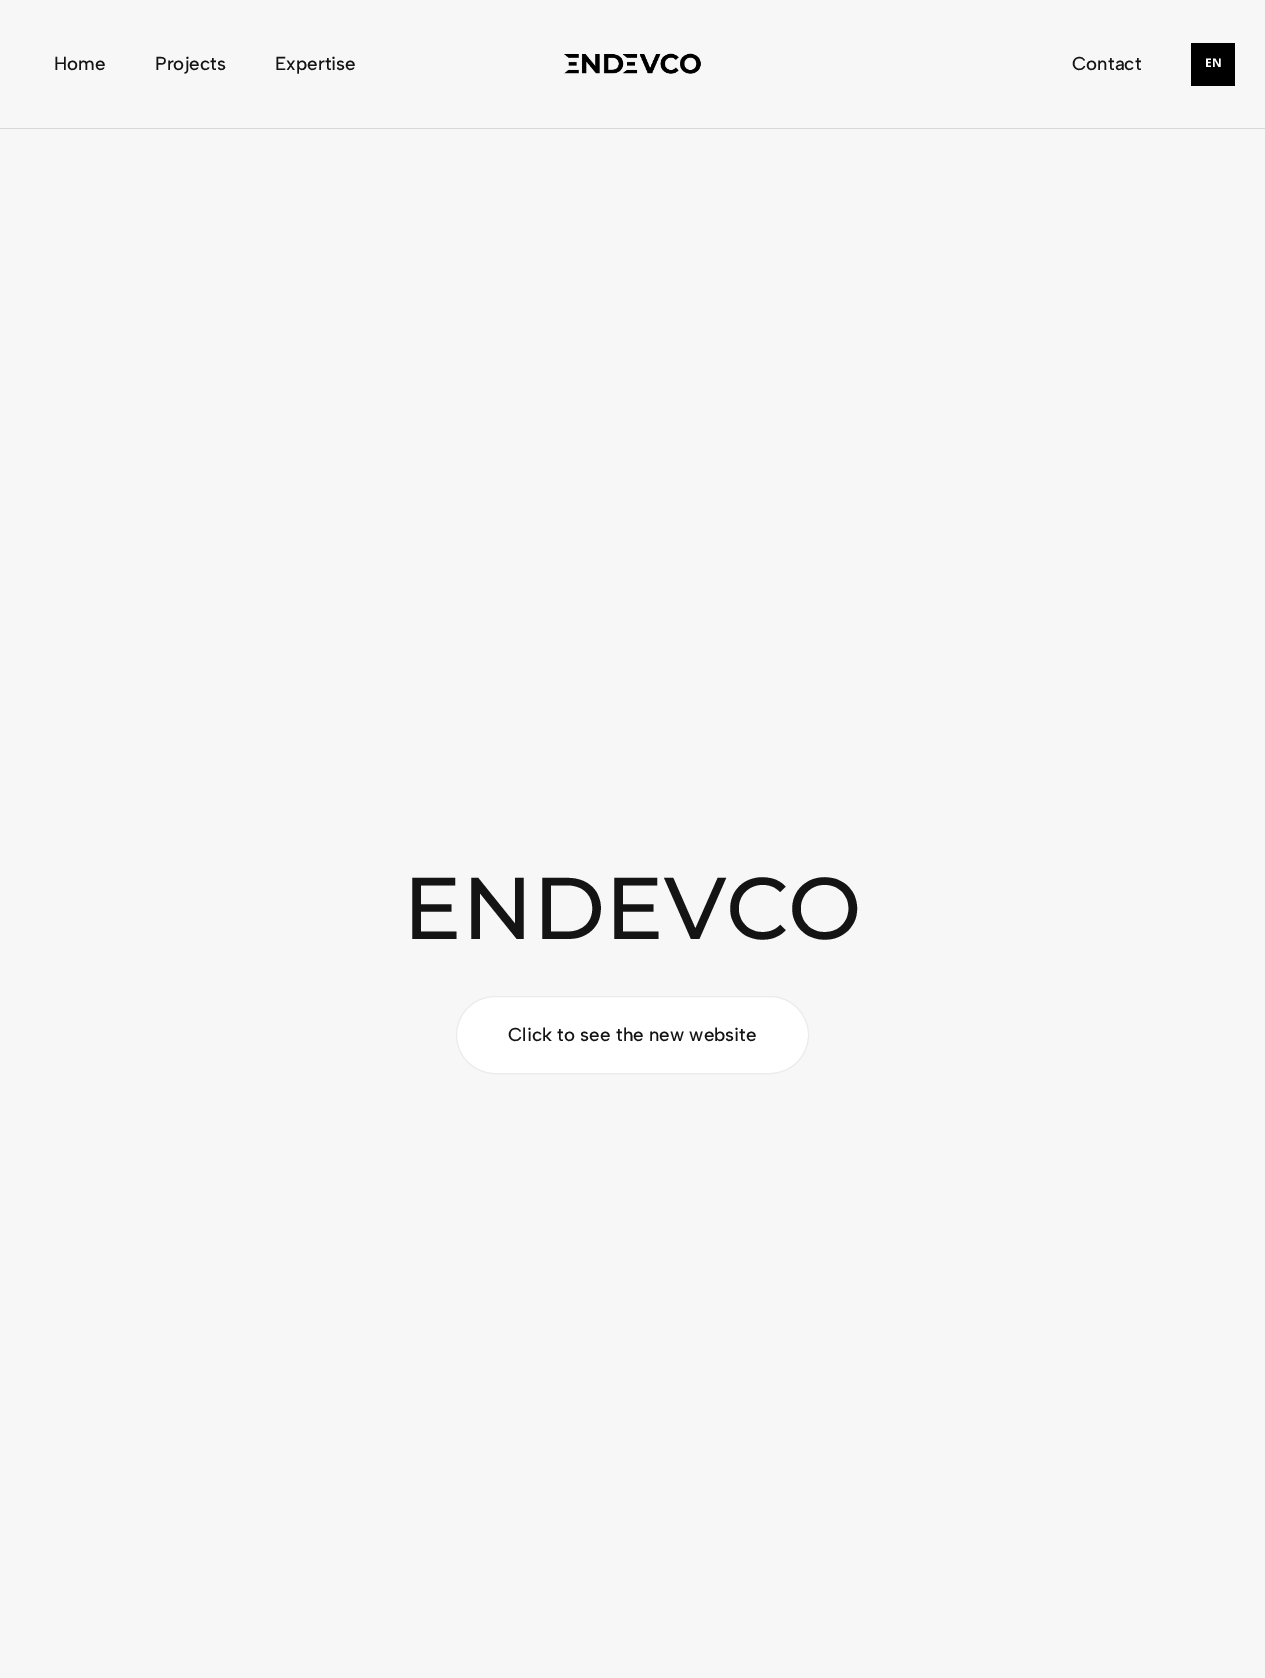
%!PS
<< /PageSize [1265 1678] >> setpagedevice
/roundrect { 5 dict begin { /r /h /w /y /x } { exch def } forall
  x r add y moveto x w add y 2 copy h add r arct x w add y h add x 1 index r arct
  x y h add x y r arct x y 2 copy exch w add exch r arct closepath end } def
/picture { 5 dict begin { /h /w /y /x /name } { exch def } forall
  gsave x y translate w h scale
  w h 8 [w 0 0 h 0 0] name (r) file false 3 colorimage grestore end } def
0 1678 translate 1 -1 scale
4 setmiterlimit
0.973 0.969 0.973 setrgbcolor
0 0 1265 1678 rectfill
/AlbertSans-Medium [18.75 0 0 -18.75 0 0] selectfont
0.078 setgray
54 70 moveto (Home) show
155 70 moveto (Projects) show
275 70 moveto (Expertise) show
(img1.rgb) 564 53 137 21 picture
1072 70 moveto (Contact) show
0 setgray
1191 43 44 43 rectfill
/NotoSans-Bold [12 0 0 -12 0 0] selectfont
1 setgray
1205 67 moveto (EN) show
0.843 setgray
0 128 1265 1 rectfill
/Montserrat-Medium [87.5 0 0 -87.5 0 0] selectfont
0.078 setgray
403 939 moveto (ENDEVCO) show
1 setgray
456.5 996.5 352 77 38.5 roundrect gsave fill grestore
0.922 setgray
stroke
/AlbertSans-Medium [18.75 0 0 -18.75 0 0] selectfont
0.078 setgray
508 1041 moveto (Click to see the new website) show
showpage
